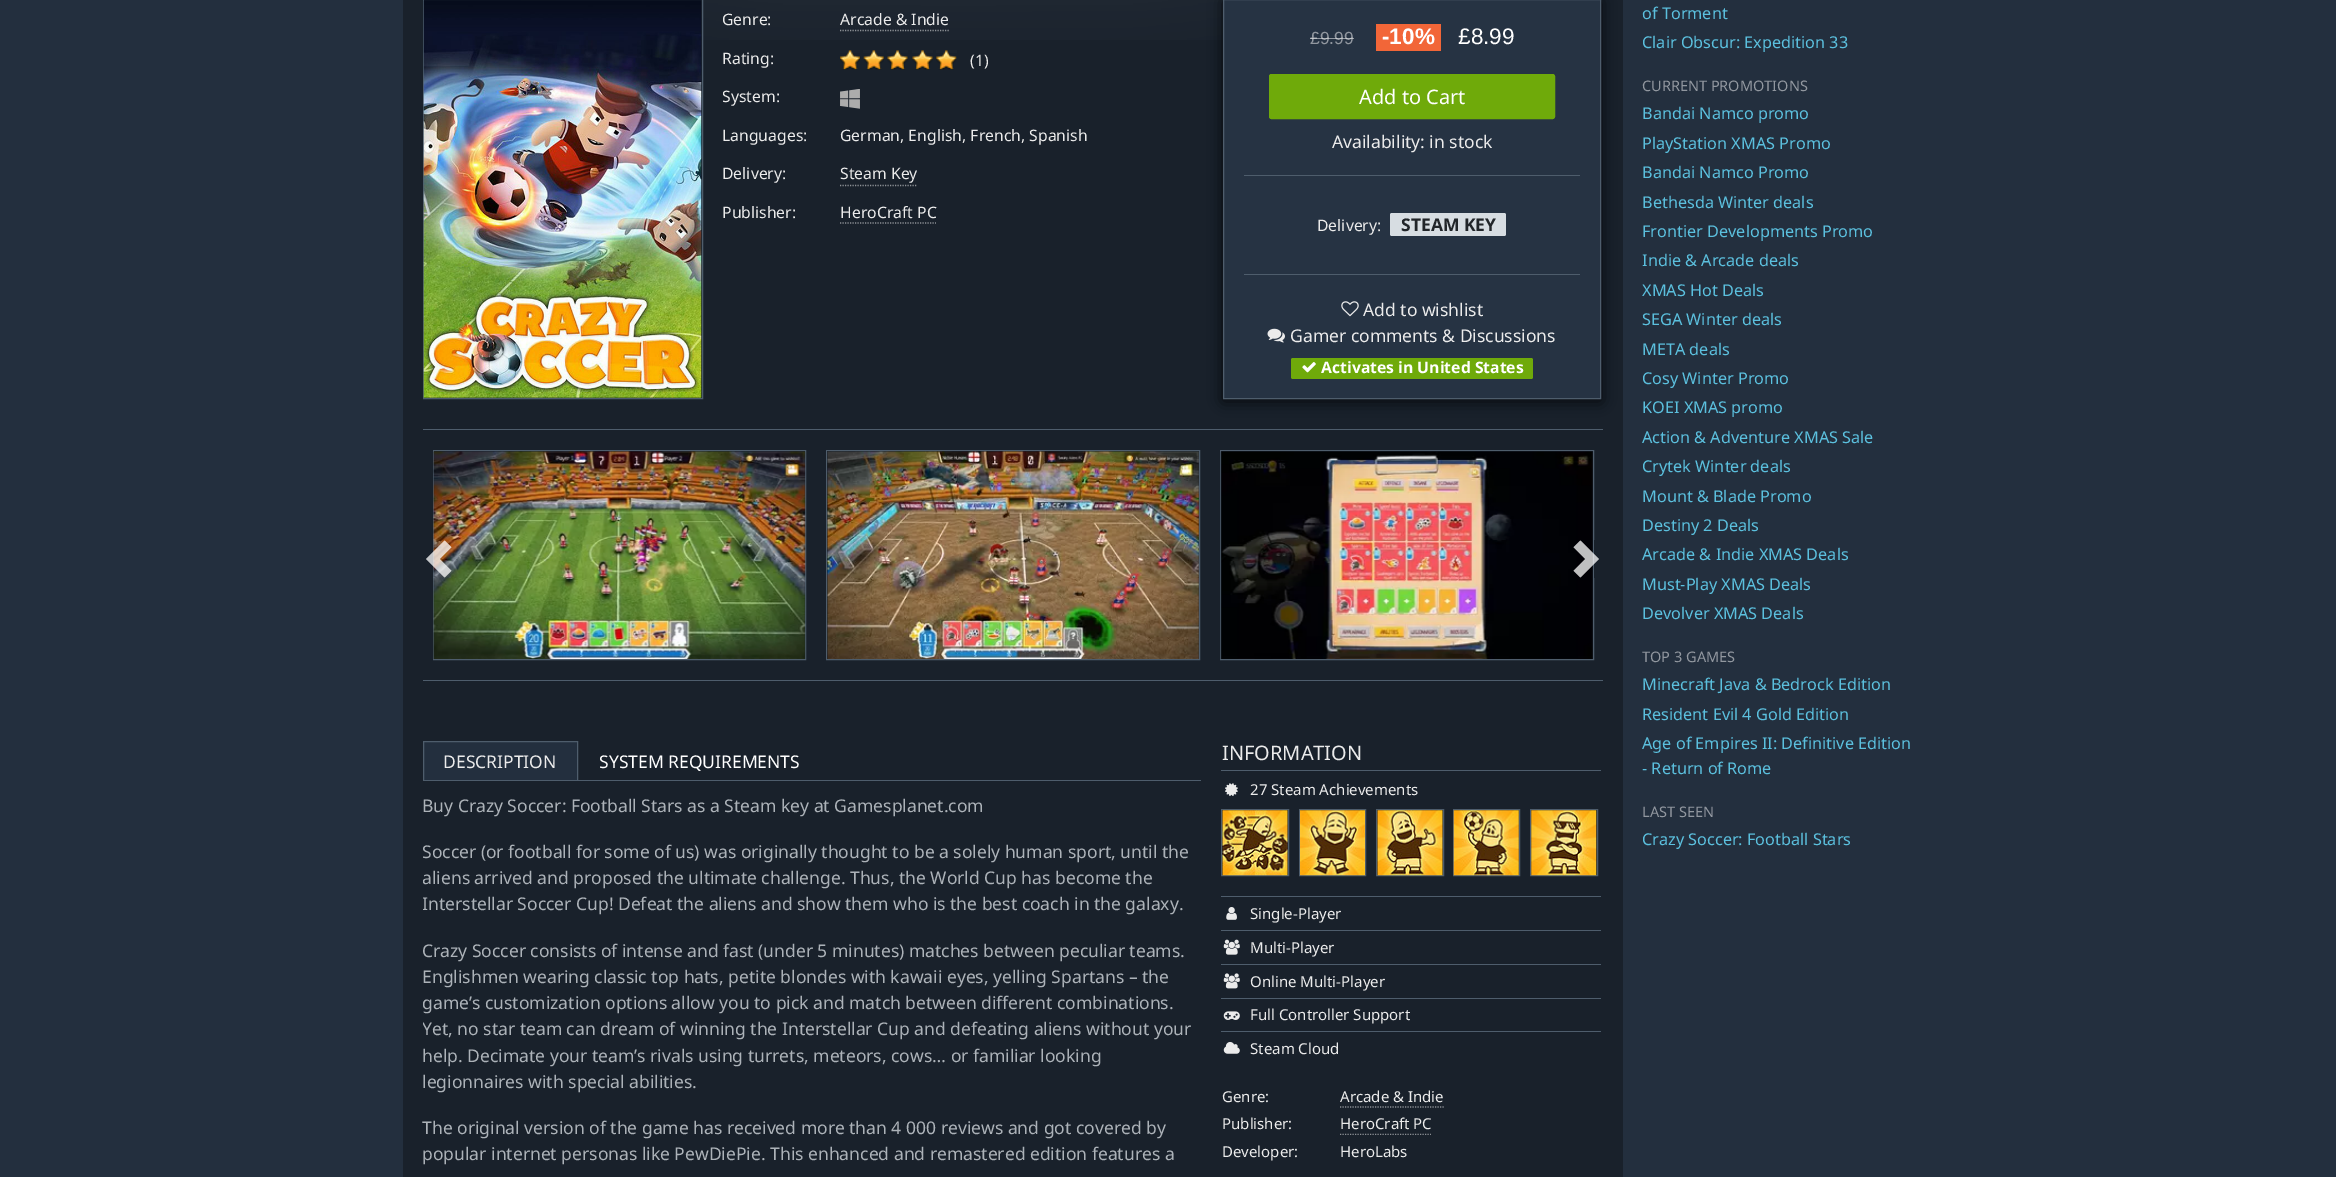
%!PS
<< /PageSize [2336 1177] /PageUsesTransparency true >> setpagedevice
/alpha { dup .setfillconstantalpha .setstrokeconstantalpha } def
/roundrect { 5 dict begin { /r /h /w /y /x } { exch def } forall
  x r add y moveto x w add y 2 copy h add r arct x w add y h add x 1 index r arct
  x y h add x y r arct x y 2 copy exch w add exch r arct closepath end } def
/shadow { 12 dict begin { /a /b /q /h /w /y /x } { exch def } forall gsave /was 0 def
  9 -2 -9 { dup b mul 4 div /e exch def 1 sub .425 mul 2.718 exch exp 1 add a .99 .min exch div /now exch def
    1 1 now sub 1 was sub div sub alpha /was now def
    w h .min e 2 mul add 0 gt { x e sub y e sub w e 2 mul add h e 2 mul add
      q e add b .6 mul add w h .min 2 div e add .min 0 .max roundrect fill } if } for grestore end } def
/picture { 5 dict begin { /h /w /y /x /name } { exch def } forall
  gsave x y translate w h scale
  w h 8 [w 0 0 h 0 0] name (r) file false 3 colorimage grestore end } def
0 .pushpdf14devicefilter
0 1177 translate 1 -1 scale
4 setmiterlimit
0.137 0.184 0.243 setrgbcolor
0 0 2336 1177 rectfill
0.098 0.129 0.169 setrgbcolor
403 0 1220 1177 rectfill
(img1.rgb) 556 0 667 40 picture
0.306 0.365 0.424 setrgbcolor
423.5 -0.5 279 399 rectstroke
(img2.rgb) 423 0 279 398 picture
gsave
723 9 480 29 rectclip
/NotoSans-Regular [15.75 0 0 -15.75 0 0] selectfont
0.922 setgray
722 25 moveto (Genre:) show
grestore
/NotoSans-Regular [15.75 0 0 -15.75 0 0] selectfont
0.922 setgray
840 25 moveto (Arcade & Indie) show
0.557 0.573 0.592 setrgbcolor
1.2 setlinewidth
[1.25 1.25] 0 setdash
newpath 840 30.5 moveto 949 30.5 lineto stroke
0.922 setgray
722 64 moveto (Rating:) show
(img3.rgb) 840 50 20 20 picture
(img4.rgb) 863 50 21 20 picture
(img5.rgb) 887 50 21 20 picture
(img6.rgb) 912 50 21 20 picture
(img7.rgb) 936 50 21 20 picture
970 66 moveto (\(1\)) show
gsave
723 86 480 29 rectclip
722 102 moveto (System:) show
grestore
(img8.rgb) 840 89 20 20 picture
722 141 moveto (Languages:) show
840 141 moveto (German, English, French, Spanish) show
722 179 moveto (Delivery:) show
840 179 moveto (Steam Key) show
0.549 0.565 0.584 setrgbcolor
newpath 840 185.5 moveto 917.5 185.5 lineto stroke
0.922 setgray
722 218 moveto (Publisher:) show
840 218 moveto (HeroCraft PC) show
0.549 0.565 0.584 setrgbcolor
newpath 840 223 moveto 936 223 lineto stroke
0 setgray
1223 1 378 400 0 7.5 0.75 shadow
0.149 0.2 0.263 setrgbcolor
newpath 1223.5 -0.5 moveto 1600.5 -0.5 lineto 1600.5 398.5 lineto 1223.5 398.5 lineto closepath gsave fill grestore
0.306 0.365 0.424 setrgbcolor
1 setlinewidth
[] 0 setdash
stroke
/LiberationSans-Regular [17.5 0 0 -17.5 0 0] selectfont
0.569 0.592 0.624 setrgbcolor
1310 44 moveto (£9.99) show
0.5 alpha
1 setgray
1310 38 44 1 rectfill
1 alpha
0.949 0.4 0.22 setrgbcolor
1376 24 65 27 rectfill
/LiberationSans-Bold [22.5 0 0 -22.5 0 0] selectfont
1 setgray
1382 44 moveto (-10%) show
/LiberationSans-Regular [22.5 0 0 -22.5 0 0] selectfont
1458 44 moveto (£8.99) show
0.435 0.667 0.039 setrgbcolor
1269.5 74.5 285 44 2 roundrect gsave fill grestore
stroke
/NotoSans-Regular [20 0 0 -20 0 0] selectfont
1 setgray
1359 104 moveto (Add to Cart) show
/NotoSans-Regular [17.5 0 0 -17.5 0 0] selectfont
0.922 setgray
1332 148 moveto (Availability: in stock) show
0.306 0.365 0.424 setrgbcolor
1244 175 336 1 rectfill
/NotoSans-Regular [15.75 0 0 -15.75 0 0] selectfont
0.922 setgray
1317 231 moveto (Delivery:) show
0.843 0.867 0.886 setrgbcolor
1390 213 116 23 2 roundrect fill
/NotoSans-Bold [17.5 0 0 -17.5 0 0] selectfont
0.129 0.145 0.161 setrgbcolor
1401 231 moveto (STEAM KEY) show
0.306 0.365 0.424 setrgbcolor
1244 274 336 1 rectfill
(img9.rgb) 1341 301 18 16 picture
/NotoSans-Regular [17.5 0 0 -17.5 0 0] selectfont
0.922 setgray
1363 316 moveto (Add to wishlist) show
(img10.rgb) 1267 328 18 15 picture
1290 342 moveto (Gamer comments & Discussions) show
0.435 0.667 0.039 setrgbcolor
1291 358 242 21 2 roundrect fill
(img11.rgb) 1302 362 14 11 picture
/NotoSans-Bold [15.75 0 0 -15.75 0 0] selectfont
1 setgray
1321 373 moveto (Activates in United States) show
0.306 0.365 0.424 setrgbcolor
423 429 1180 1 rectfill
423 680 1180 1 rectfill
433.5 450.5 372 209 rectstroke
(img12.rgb) 433 451 373 208 picture
826.5 450.5 373 209 rectstroke
(img13.rgb) 827 451 372 208 picture
1220.5 450.5 373 209 rectstroke
(img14.rgb) 1220 451 373 208 picture
(img15.rgb) 426 540 26 38 picture
(img16.rgb) 1573 540 26 38 picture
423 780 778 1 rectfill
0.137 0.184 0.243 setrgbcolor
424 742 153 38 rectfill
gsave
423 741 778 39 rectclip
0.306 0.365 0.424 setrgbcolor
423.5 741.5 154 39 rectstroke
grestore
/NotoSans-Regular [17.5 0 0 -17.5 0 0] selectfont
0.922 setgray
443 768 moveto (DESCRIPTION) show
1 setgray
599 768 moveto (SYSTEM REQUIREMENTS) show
0.675 0.698 0.722 setrgbcolor
422 812 moveto (Buy Crazy Soccer: Football Stars as a Steam key at Gamesplanet.com) show
422 858 moveto (Soccer \(or football for some of us\) was originally thought to be a solely human sport, until the) show
gsave
423 791 773 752 rectclip
422 884 moveto (aliens arrived and proposed the ultimate challenge. Thus, the World Cup has become the) show
422 910 moveto (Interstellar Soccer Cup! Defeat the aliens and show them who is the best coach in the galaxy.) show
grestore
422 957 moveto (Crazy Soccer consists of intense and fast \(under 5 minutes\) matches between peculiar teams.) show
422 983 moveto (Englishmen wearing classic top hats, petite blondes with kawaii eyes, yelling Spartans – the) show
422 1009 moveto (game’s customization options allow you to pick and match between different combinations.) show
gsave
423 791 773 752 rectclip
422 1035 moveto (Yet, no star team can dream of winning the Interstellar Cup and defeating aliens without your) show
grestore
422 1062 moveto (help. Decimate your team’s rivals using turrets, meteors, cows… or familiar looking) show
422 1088 moveto (legionnaires with special abilities.) show
422 1134 moveto (The original version of the game has received more than 4 000 reviews and got covered by) show
422 1160 moveto (popular internet personas like PewDiePie. This enhanced and remastered edition features a) show
0.306 0.365 0.424 setrgbcolor
1221 770 380 1 rectfill
/NotoSans-Regular [20 0 0 -20 0 0] selectfont
0.922 setgray
1222 760 moveto (INFORMATION) show
(img17.rgb) 1225 783 13 14 picture
/NotoSans-Regular [15 0 0 -15 0 0] selectfont
1250 795 moveto (27 Steam Achievements) show
0.306 0.365 0.424 setrgbcolor
1221.5 809.5 67 66 rectstroke
1299.5 809.5 66 66 rectstroke
1376.5 809.5 67 66 rectstroke
1453.5 809.5 66 66 rectstroke
1530.5 809.5 67 66 rectstroke
(img18.rgb) 1222 810 66 66 picture
(img19.rgb) 1300 810 65 66 picture
(img20.rgb) 1377 810 66 66 picture
(img21.rgb) 1453 810 66 66 picture
(img22.rgb) 1531 810 66 66 picture
1221 896 380 1 rectfill
(img23.rgb) 1226 907 11 13 picture
0.922 setgray
1250 919 moveto (Single-Player) show
0.306 0.365 0.424 setrgbcolor
1221 930 380 1 rectfill
(img24.rgb) 1223 939 17 16 picture
0.922 setgray
1250 953 moveto (Multi-Player) show
0.306 0.365 0.424 setrgbcolor
1221 964 380 1 rectfill
(img25.rgb) 1223 973 17 16 picture
0.922 setgray
1250 987 moveto (Online Multi-Player) show
0.306 0.365 0.424 setrgbcolor
1221 998 380 1 rectfill
(img26.rgb) 1223 1011 17 9 picture
0.922 setgray
1250 1020 moveto (Full Controller Support) show
0.306 0.365 0.424 setrgbcolor
1221 1031 380 1 rectfill
(img27.rgb) 1223 1042 17 12 picture
0.922 setgray
1250 1054 moveto (Steam Cloud) show
1222 1102 moveto (Genre:) show
1340 1102 moveto (Arcade & Indie) show
0.549 0.565 0.584 setrgbcolor
1.2 setlinewidth
[1.25 1.25] 0 setdash
newpath 1340 1107 moveto 1444 1107 lineto stroke
0.922 setgray
1222 1129 moveto (Publisher:) show
1340 1129 moveto (HeroCraft PC) show
gsave
1221 1113 380 22 rectclip
0.549 0.565 0.584 setrgbcolor
newpath 1340 1134.5 moveto 1431 1134.5 lineto stroke
grestore
1222 1157 moveto (Developer:) show
1340 1157 moveto (HeroLabs) show
/NotoSans-Regular [16.25 0 0 -16.25 0 0] selectfont
0.357 0.753 0.871 setrgbcolor
1642 19 moveto (of Torment) show
1642 48 moveto (Clair Obscur: Expedition 33) show
/NotoSans-Regular [14.5 0 0 -14.5 0 0] selectfont
0.569 0.592 0.624 setrgbcolor
1642 91 moveto (CURRENT PROMOTIONS) show
/NotoSans-Regular [16.25 0 0 -16.25 0 0] selectfont
0.357 0.753 0.871 setrgbcolor
1642 119 moveto (Bandai Namco promo) show
1642 149 moveto (PlayStation XMAS Promo) show
1642 178 moveto (Bandai Namco Promo) show
1642 208 moveto (Bethesda Winter deals) show
1642 237 moveto (Frontier Developments Promo) show
1642 266 moveto (Indie & Arcade deals) show
1642 296 moveto (XMAS Hot Deals) show
1642 325 moveto (SEGA Winter deals) show
1642 355 moveto (META deals) show
1642 384 moveto (Cosy Winter Promo) show
1642 413 moveto (KOEI XMAS promo) show
1642 443 moveto (Action & Adventure XMAS Sale) show
1642 472 moveto (Crytek Winter deals) show
1642 502 moveto (Mount & Blade Promo) show
1642 531 moveto (Destiny 2 Deals) show
1642 560 moveto (Arcade & Indie XMAS Deals) show
1642 590 moveto (Must-Play XMAS Deals) show
1642 619 moveto (Devolver XMAS Deals) show
/NotoSans-Regular [14.5 0 0 -14.5 0 0] selectfont
0.569 0.592 0.624 setrgbcolor
1642 662 moveto (TOP 3 GAMES) show
/NotoSans-Regular [16.25 0 0 -16.25 0 0] selectfont
0.357 0.753 0.871 setrgbcolor
1642 690 moveto (Minecraft Java & Bedrock Edition) show
1642 720 moveto (Resident Evil 4 Gold Edition) show
1642 749 moveto (Age of Empires II: Definitive Edition) show
1642 774 moveto (- Return of Rome) show
/NotoSans-Regular [14.5 0 0 -14.5 0 0] selectfont
0.569 0.592 0.624 setrgbcolor
1642 817 moveto (LAST SEEN) show
/NotoSans-Regular [16.25 0 0 -16.25 0 0] selectfont
0.357 0.753 0.871 setrgbcolor
1642 845 moveto (Crazy Soccer: Football Stars) show
.poppdf14devicefilter showpage
